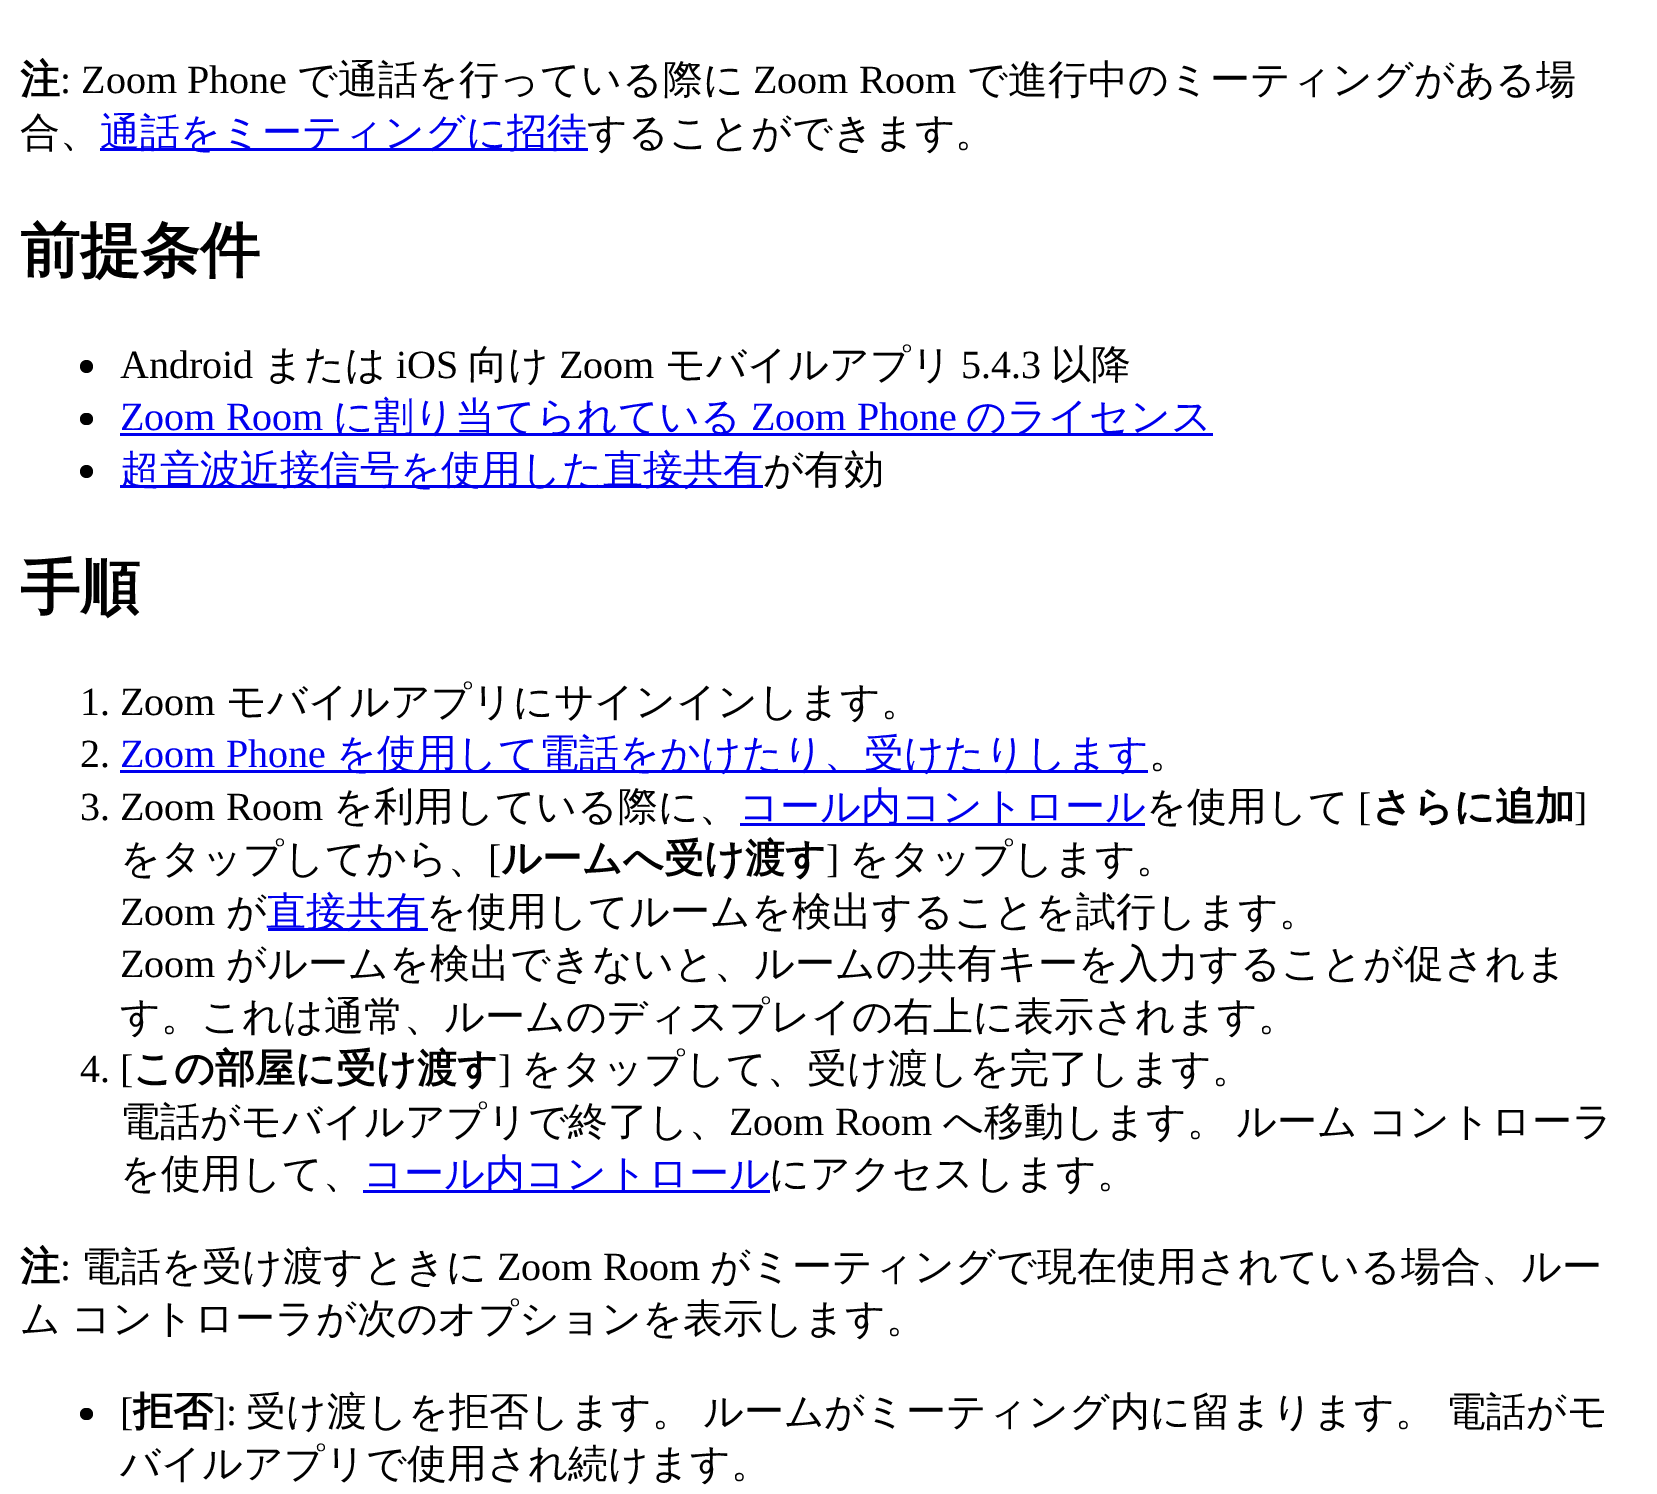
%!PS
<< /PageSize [1657 1494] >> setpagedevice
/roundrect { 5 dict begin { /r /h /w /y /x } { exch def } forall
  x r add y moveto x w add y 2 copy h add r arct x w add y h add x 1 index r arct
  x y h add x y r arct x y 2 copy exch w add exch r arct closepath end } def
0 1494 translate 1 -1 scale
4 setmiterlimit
1 setgray
0 0 1657 1494 rectfill
/WenQuanYiZenHei-Bold [40 0 0 -40 0 0] selectfont
0 setgray
20 93 moveto (注) show
/LiberationSerif-Regular [40 0 0 -40 0 0] selectfont
60 93 moveto (: Zoom Phone) show
/WenQuanYiZenHei-Medium [40 0 0 -40 0 0] selectfont
297 93 moveto (で通話を行っている際に) show
/LiberationSerif-Regular [40 0 0 -40 0 0] selectfont
753 93 moveto (Zoom Room) show
/WenQuanYiZenHei-Medium [40 0 0 -40 0 0] selectfont
967 93 moveto (で進行中のミーティングがある場) show
20 146 moveto (合、) show
0 0 0.933 setrgbcolor
100 148 488 3 rectfill
100 146 moveto (通話をミーティングに招待) show
0 setgray
587 146 moveto (することができます。) show
/WenQuanYiZenHei-Bold [60 0 0 -60 0 0] selectfont
20 271 moveto (前提条件) show
newpath 86.5 366.5 6.5 0 360 arc closepath fill
/LiberationSerif-Regular [40 0 0 -40 0 0] selectfont
120 378 moveto (Android) show
/WenQuanYiZenHei-Medium [40 0 0 -40 0 0] selectfont
263 378 moveto (または) show
/LiberationSerif-Regular [40 0 0 -40 0 0] selectfont
396 378 moveto (iOS) show
/WenQuanYiZenHei-Medium [40 0 0 -40 0 0] selectfont
468 378 moveto (向け) show
/LiberationSerif-Regular [40 0 0 -40 0 0] selectfont
559 378 moveto (Zoom) show
/WenQuanYiZenHei-Medium [40 0 0 -40 0 0] selectfont
665 378 moveto (モバイルアプリ) show
/LiberationSerif-Regular [40 0 0 -40 0 0] selectfont
961 378 moveto (5.4.3) show
/WenQuanYiZenHei-Medium [40 0 0 -40 0 0] selectfont
1051 378 moveto (以降) show
80 413 13 12 6 roundrect fill
/LiberationSerif-Regular [40 0 0 -40 0 0] selectfont
0 0 0.933 setrgbcolor
120 430 moveto (Zoom Room) show
120 433 1093 3 rectfill
/WenQuanYiZenHei-Medium [40 0 0 -40 0 0] selectfont
333 430 moveto (に割り当てられている) show
/LiberationSerif-Regular [40 0 0 -40 0 0] selectfont
751 430 moveto (Zoom Phone) show
/WenQuanYiZenHei-Medium [40 0 0 -40 0 0] selectfont
966 430 moveto (のライセンス) show
0 setgray
newpath 86.5 471.5 6.5 0 360 arc closepath fill
0 0 0.933 setrgbcolor
120 485 643 3 rectfill
120 483 moveto (超音波近接信号を使用した直接共有) show
0 setgray
763 483 moveto (が有効) show
/WenQuanYiZenHei-Bold [60 0 0 -60 0 0] selectfont
20 608 moveto (手順) show
/LiberationSerif-Regular [40 0 0 -40 0 0] selectfont
80 715 moveto (1. Zoom) show
/WenQuanYiZenHei-Medium [40 0 0 -40 0 0] selectfont
226 715 moveto (モバイルアプリにサインインします。) show
/LiberationSerif-Regular [40 0 0 -40 0 0] selectfont
80 767 moveto (2.) show
0 0 0.933 setrgbcolor
120 767 moveto (Zoom Phone) show
120 770 1028 3 rectfill
/WenQuanYiZenHei-Medium [40 0 0 -40 0 0] selectfont
336 767 moveto (を使用して電話をかけたり、受けたりします) show
0 setgray
1149 767 moveto (。) show
/LiberationSerif-Regular [40 0 0 -40 0 0] selectfont
80 820 moveto (3. Zoom Room) show
/WenQuanYiZenHei-Medium [40 0 0 -40 0 0] selectfont
333 820 moveto (を利用している際に、) show
0 0 0.933 setrgbcolor
740 823 405 3 rectfill
739 820 moveto (コール内コントロール) show
0 setgray
1146 820 moveto (を使用して) show
/LiberationSerif-Regular [40 0 0 -40 0 0] selectfont
1358 820 moveto ([) show
/WenQuanYiZenHei-Bold [40 0 0 -40 0 0] selectfont
1372 820 moveto (さらに追加) show
/LiberationSerif-Regular [40 0 0 -40 0 0] selectfont
1574 820 moveto (]) show
/WenQuanYiZenHei-Medium [40 0 0 -40 0 0] selectfont
120 872 moveto (をタップしてから、) show
/LiberationSerif-Regular [40 0 0 -40 0 0] selectfont
488 872 moveto ([) show
/WenQuanYiZenHei-Bold [40 0 0 -40 0 0] selectfont
501 872 moveto (ルームへ受け渡す) show
/LiberationSerif-Regular [40 0 0 -40 0 0] selectfont
826 872 moveto (]) show
/WenQuanYiZenHei-Medium [40 0 0 -40 0 0] selectfont
849 872 moveto (をタップします。) show
/LiberationSerif-Regular [40 0 0 -40 0 0] selectfont
120 925 moveto (Zoom) show
/WenQuanYiZenHei-Medium [40 0 0 -40 0 0] selectfont
226 925 moveto (が) show
0 0 0.933 setrgbcolor
268 928 160 3 rectfill
266 925 moveto (直接共有) show
0 setgray
426 925 moveto (を使用してルームを検出することを試行します。) show
/LiberationSerif-Regular [40 0 0 -40 0 0] selectfont
120 977 moveto (Zoom) show
/WenQuanYiZenHei-Medium [40 0 0 -40 0 0] selectfont
226 977 moveto (がルームを検出できないと、ルームの共有キーを入力することが促されま) show
120 1030 moveto (す。これは通常、ルームのディスプレイの右上に表示されます。) show
/LiberationSerif-Regular [40 0 0 -40 0 0] selectfont
80 1082 moveto (4. [) show
/WenQuanYiZenHei-Bold [40 0 0 -40 0 0] selectfont
133 1082 moveto (この部屋に受け渡す) show
/LiberationSerif-Regular [40 0 0 -40 0 0] selectfont
498 1082 moveto (]) show
/WenQuanYiZenHei-Medium [40 0 0 -40 0 0] selectfont
521 1082 moveto (をタップして、受け渡しを完了します。) show
120 1135 moveto (電話がモバイルアプリで終了し、) show
/LiberationSerif-Regular [40 0 0 -40 0 0] selectfont
729 1135 moveto (Zoom Room) show
/WenQuanYiZenHei-Medium [40 0 0 -40 0 0] selectfont
943 1135 moveto (へ移動します。) show
1236 1135 moveto (ルーム) show
1368 1135 moveto (コントローラ) show
120 1187 moveto (を使用して、) show
0 0 0.933 setrgbcolor
363 1190 407 3 rectfill
363 1187 moveto (コール内コントロール) show
0 setgray
769 1187 moveto (にアクセスします。) show
/WenQuanYiZenHei-Bold [40 0 0 -40 0 0] selectfont
20 1280 moveto (注) show
/LiberationSerif-Regular [40 0 0 -40 0 0] selectfont
60 1280 moveto (:) show
/WenQuanYiZenHei-Medium [40 0 0 -40 0 0] selectfont
81 1280 moveto (電話を受け渡すときに) show
/LiberationSerif-Regular [40 0 0 -40 0 0] selectfont
497 1280 moveto (Zoom Room) show
/WenQuanYiZenHei-Medium [40 0 0 -40 0 0] selectfont
710 1280 moveto (がミーティングで現在使用されている場合、ルー) show
20 1332 moveto -2 0 32 (ム コントローラが次のオプションを表示します。) widthshow
80 1408 13 12 6 roundrect fill
/LiberationSerif-Regular [40 0 0 -40 0 0] selectfont
120 1425 moveto ([) show
/WenQuanYiZenHei-Bold [40 0 0 -40 0 0] selectfont
133 1425 moveto (拒否) show
/LiberationSerif-Regular [40 0 0 -40 0 0] selectfont
213 1425 moveto (]:) show
/WenQuanYiZenHei-Medium [40 0 0 -40 0 0] selectfont
246 1425 moveto -1 0 32 (受け渡しを拒否します。 ルームがミーティング内に留まります。 電話がモ) widthshow
120 1477 moveto (バイルアプリで使用され続けます。) show
showpage
